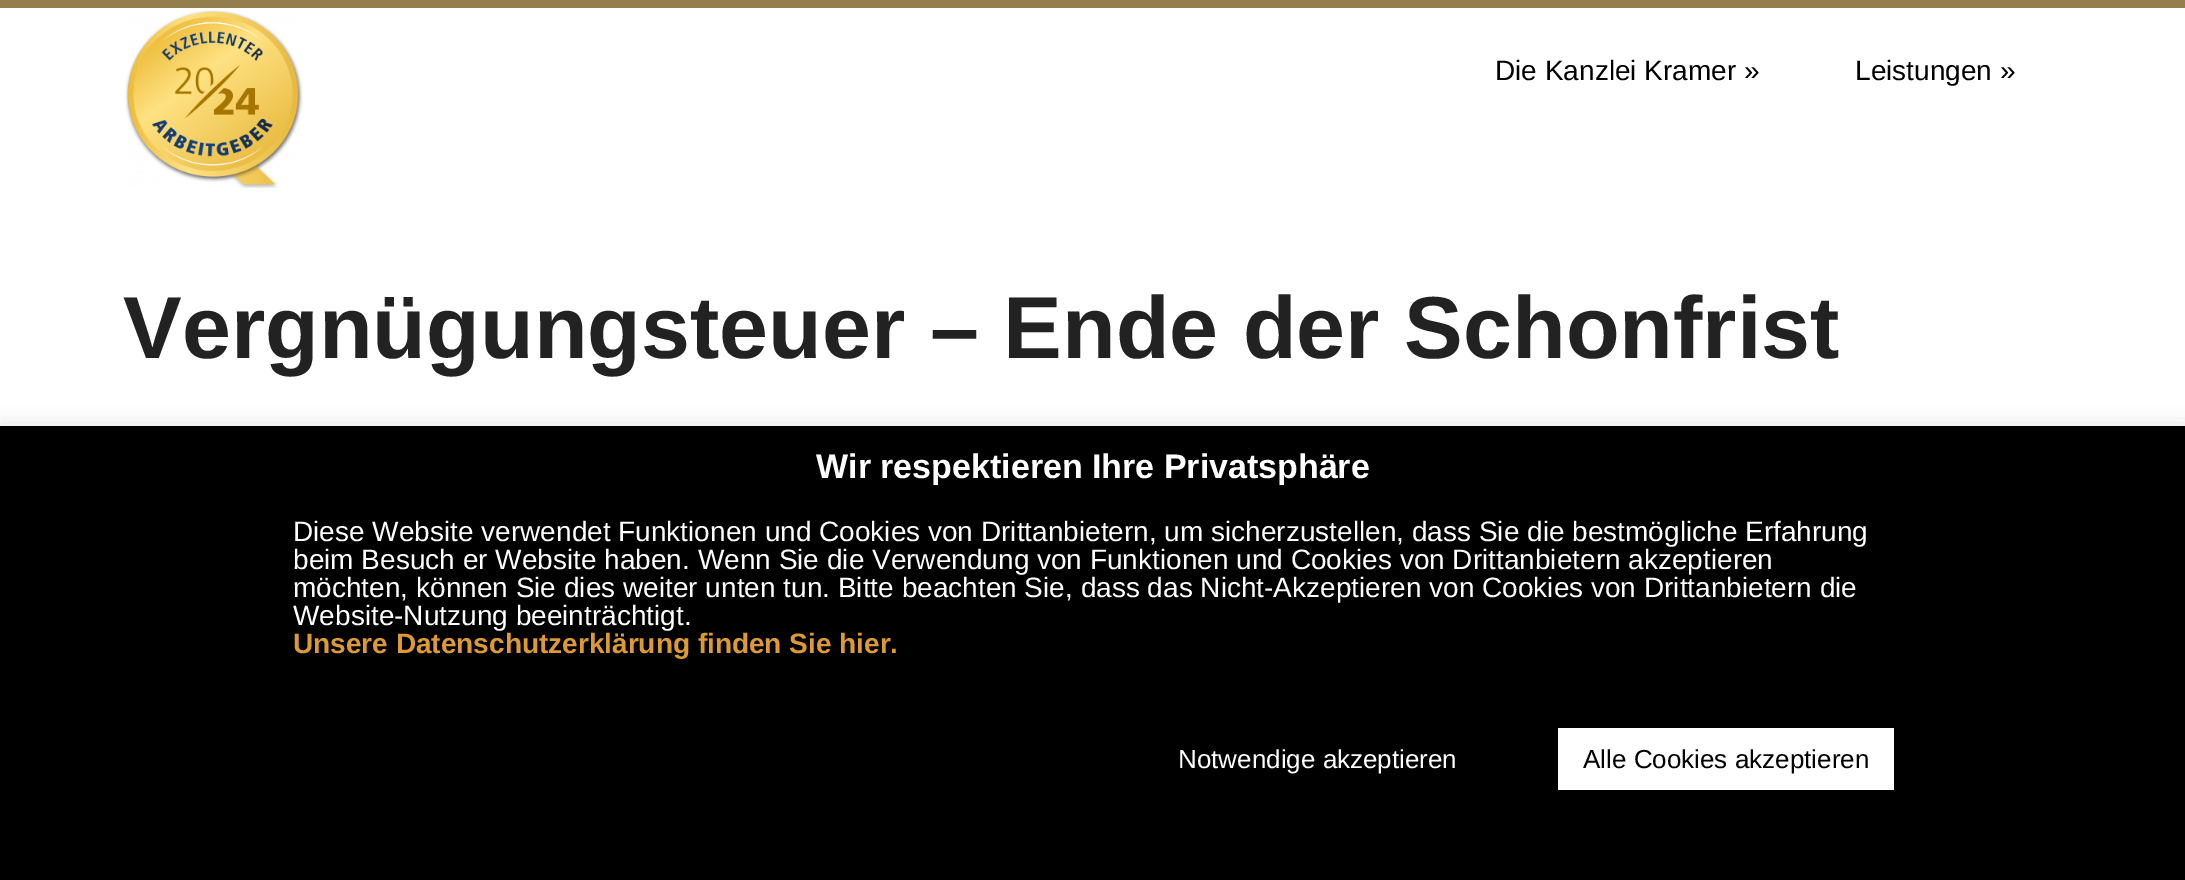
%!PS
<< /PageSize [2185 880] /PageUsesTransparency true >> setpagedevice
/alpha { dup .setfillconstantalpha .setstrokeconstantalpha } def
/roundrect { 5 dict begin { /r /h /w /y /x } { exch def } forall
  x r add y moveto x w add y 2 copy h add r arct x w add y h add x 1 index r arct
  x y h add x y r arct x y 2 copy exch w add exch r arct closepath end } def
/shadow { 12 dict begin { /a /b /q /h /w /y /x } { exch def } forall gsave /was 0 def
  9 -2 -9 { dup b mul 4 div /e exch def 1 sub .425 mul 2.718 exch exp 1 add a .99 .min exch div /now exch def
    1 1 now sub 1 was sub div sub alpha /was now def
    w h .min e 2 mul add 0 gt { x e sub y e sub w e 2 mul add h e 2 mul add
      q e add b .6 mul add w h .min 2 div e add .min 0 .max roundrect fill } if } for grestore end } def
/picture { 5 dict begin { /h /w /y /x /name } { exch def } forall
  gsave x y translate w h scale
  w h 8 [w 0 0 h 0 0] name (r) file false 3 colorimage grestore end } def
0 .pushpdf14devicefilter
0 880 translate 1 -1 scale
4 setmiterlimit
1 setgray
0 0 2185 880 rectfill
0.58 0.494 0.302 setrgbcolor
0 0 2185 8 rectfill
(img1.rgb) 125 10 178 178 picture
/LiberationSans-Regular [28 0 0 -28 0 0] selectfont
0 setgray
1495 80 moveto (Die Kanzlei Kramer ») show
1855 80 moveto (Leistungen ») show
/LiberationSans-Bold [88 0 0 -88 0 0] selectfont
0.133 setgray
123 358 moveto (Vergnügungsteuer – Ende der Schonfrist) show
0.675 0.671 0.671 setrgbcolor
0 424 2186 454 0 10 0.3 shadow
0 setgray
0 426 2185 454 rectfill
/LiberationSans-Bold [34 0 0 -34 0 0] selectfont
1 setgray
816 478 moveto (Wir respektieren Ihre Privatsphäre) show
/LiberationSans-Regular [28 0 0 -28 0 0] selectfont
293 541 moveto (Diese Website verwendet Funktionen und Cookies von Drittanbietern, um sicherzustellen, dass Sie die bestmögliche Erfahrung) show
293 569 moveto (beim Besuch er Website haben. Wenn Sie die Verwendung von Funktionen und Cookies von Drittanbietern akzeptieren) show
293 597 moveto (möchten, können Sie dies weiter unten tun. Bitte beachten Sie, dass das Nicht-Akzeptieren von Cookies von Drittanbietern die) show
293 625 moveto (Website-Nutzung beeinträchtigt.) show
/LiberationSans-Bold [28 0 0 -28 0 0] selectfont
0.867 0.6 0.2 setrgbcolor
293 653 moveto (Unsere Datenschutzerklärung finden Sie hier.) show
/LiberationSans-Regular [26 0 0 -26 0 0] selectfont
1 setgray
1178 768 moveto (Notwendige akzeptieren) show
1558 728 336 62 rectfill
0 setgray
1583 768 moveto (Alle Cookies akzeptieren) show
.poppdf14devicefilter showpage
